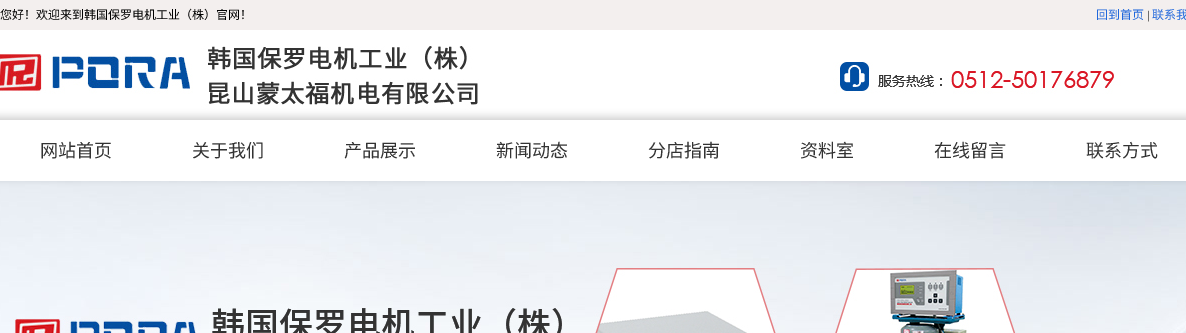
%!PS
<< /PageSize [1186 333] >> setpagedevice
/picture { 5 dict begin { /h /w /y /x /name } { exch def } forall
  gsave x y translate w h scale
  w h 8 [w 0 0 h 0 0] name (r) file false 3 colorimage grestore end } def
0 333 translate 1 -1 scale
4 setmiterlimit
1 setgray
0 0 1186 333 rectfill
0.953 0.937 0.933 setrgbcolor
0 0 1186 30 rectfill
/NotoSansCJKSC-Regular [12 0 0 -12 0 0] selectfont
0 setgray
0 19 moveto (您好！欢迎来到韩国保罗电机工业（株）官网！) show
0.125 0.408 0.863 setrgbcolor
1096 19 moveto (回到首页) show
/LiberationSerif-Regular [12 0 0 -12 0 0] selectfont
0 setgray
1147 19 moveto (|) show
/NotoSansCJKSC-Regular [12 0 0 -12 0 0] selectfont
0.125 0.408 0.863 setrgbcolor
1152 19 moveto (联系我) show
(img1.rgb) 0 46 1186 74 picture
/NotoSansCJKSC-Regular [18 0 0 -18 0 0] selectfont
0.2 setgray
40 157 moveto (网站首页) show
192 157 moveto (关于我们) show
344 157 moveto (产品展示) show
496 157 moveto (新闻动态) show
648 157 moveto (分店指南) show
800 157 moveto (资料室) show
934 157 moveto (在线留言) show
1086 157 moveto (联系方式) show
(img2.rgb) 0 181 1186 152 picture
showpage
